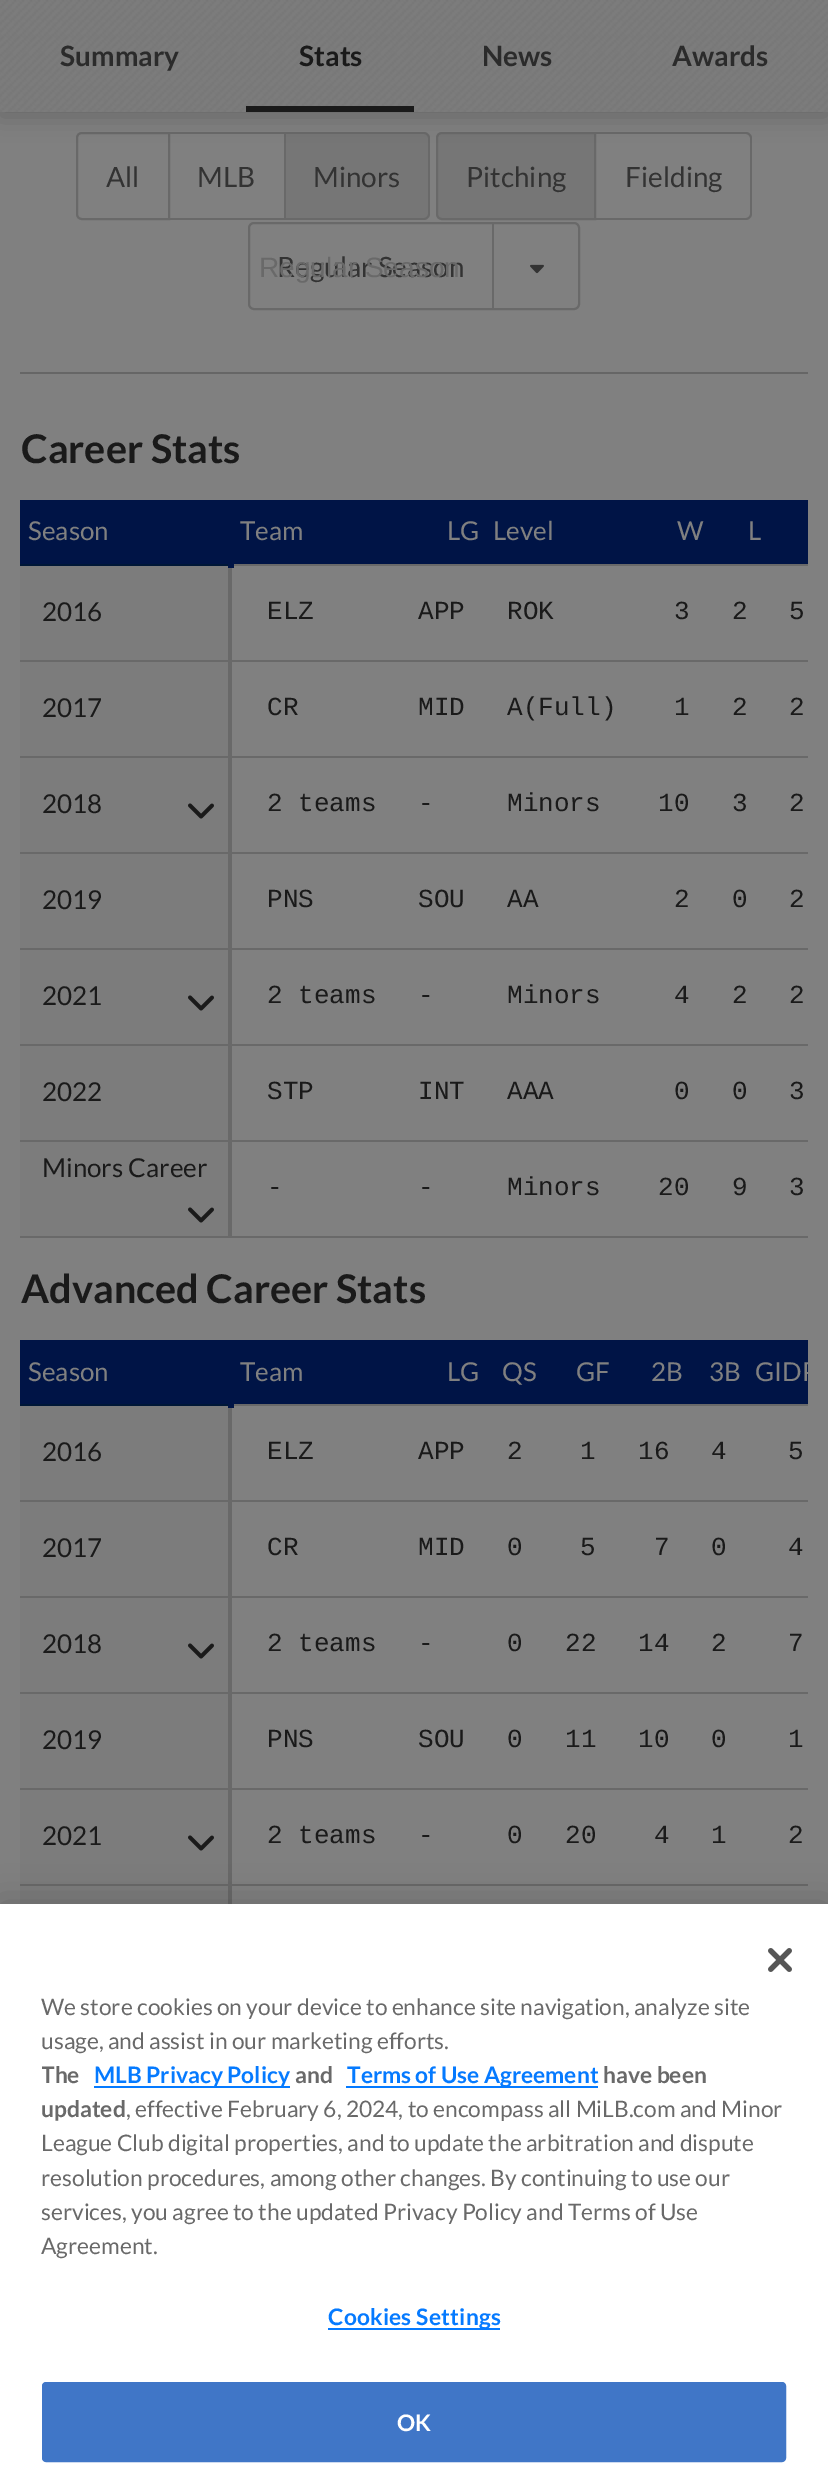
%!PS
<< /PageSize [828 2489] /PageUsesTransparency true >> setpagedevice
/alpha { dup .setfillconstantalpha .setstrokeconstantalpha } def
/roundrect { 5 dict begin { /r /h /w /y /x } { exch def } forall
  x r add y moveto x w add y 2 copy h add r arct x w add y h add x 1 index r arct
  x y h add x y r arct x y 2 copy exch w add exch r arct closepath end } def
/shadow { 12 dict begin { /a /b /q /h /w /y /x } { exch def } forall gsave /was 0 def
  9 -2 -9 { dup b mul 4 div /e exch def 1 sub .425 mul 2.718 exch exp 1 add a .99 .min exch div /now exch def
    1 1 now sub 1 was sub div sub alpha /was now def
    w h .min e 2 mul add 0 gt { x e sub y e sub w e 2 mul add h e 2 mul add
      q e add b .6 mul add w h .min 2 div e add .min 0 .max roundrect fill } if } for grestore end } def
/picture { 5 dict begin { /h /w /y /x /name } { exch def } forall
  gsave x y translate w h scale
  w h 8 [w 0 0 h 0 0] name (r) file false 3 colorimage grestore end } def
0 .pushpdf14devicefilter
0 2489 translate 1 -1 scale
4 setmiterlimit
0.502 setgray
0 0 828 2489 rectfill
0.412 setgray
2 setlinewidth
newpath 82 133 moveto 169 133 lineto 169 219 lineto 82 219 lineto 79 219 77 217 77 214 curveto 77 138 lineto 77 135 79 133 82 133 curveto closepath stroke
170 132 116 2 rectfill
284 132 2 88 rectfill
0.463 setgray
newpath 286 134 moveto 424 134 lineto 426 134 428 136 428 138 curveto 428 214 lineto 428 216 426 218 424 218 curveto 286 218 lineto closepath fill
0.412 setgray
newpath 286 132 moveto 424 132 lineto 427 132 430 135 430 138 curveto 430 214 lineto 430 217 427 220 424 220 curveto 286 220 lineto closepath 286 134 moveto 424 134 lineto 426 134 428 136 428 138 curveto 428 214 lineto 428 216 426 218 424 218 curveto 286 218 lineto closepath eofill
0.463 setgray
newpath 442 133 moveto 595 133 lineto 595 219 lineto 442 219 lineto 439 219 437 217 437 214 curveto 437 138 lineto 437 135 439 133 442 133 curveto closepath gsave fill grestore
0.412 setgray
stroke
newpath 596 132 moveto 746 132 lineto 749 132 752 135 752 138 curveto 752 214 lineto 752 217 749 220 746 220 curveto 596 220 lineto closepath 596 134 moveto 746 134 lineto 748 134 750 136 750 138 curveto 750 214 lineto 750 216 748 218 746 218 curveto 596 218 lineto closepath eofill
0 setgray
0 4 828 112 0 12 0.2 shadow
(img1.rgb) 0 0 828 112 picture
/Lato-Bold [28 0 0 -28 0 0] selectfont
0.169 setgray
60 66 moveto (Summary) show
0.102 setgray
246 106 168 6 rectfill
299 66 moveto (Stats) show
0.169 setgray
482 66 moveto (News) show
672 66 moveto (Awards) show
0.4 setgray
20 372 788 2 rectfill
/Lato-Regular [28 0 0 -28 0 0] selectfont
0.2 setgray
106 187 moveto (All) show
0.412 setgray
170 218 116 2 rectfill
0.2 setgray
197 187 moveto (MLB) show
313 187 moveto (Minors) show
466 187 moveto (Pitching) show
625 187 moveto (Fielding) show
0.412 setgray
249 223 330 86 5 roundrect stroke
0.2 setgray
277 277 moveto (Regular Season) show
/LiberationSans-Regular [28 0 0 -28 0 0] selectfont
0.412 setgray
259 277 moveto (Regular Season) show
492 224 2 84 rectfill
(img2.rgb) 530 264 14 10 picture
/Lato-Bold [39.6 0 0 -39.6 0 0] selectfont
0.102 setgray
21 463 moveto (Career Stats) show
0.412 setgray
234 564 574 2 rectfill
0 0.09 0.216 setrgbcolor
20 564 212 2 rectfill
0.412 setgray
20 660 788 2 rectfill
20 756 788 2 rectfill
20 852 788 2 rectfill
20 948 788 2 rectfill
20 1044 788 2 rectfill
20 1140 788 2 rectfill
20 1236 788 2 rectfill
228 562 4 676 rectfill
0 0.078 0.275 setrgbcolor
228 500 6 68 rectfill
20 500 208 64 rectfill
/Lato-Regular [26 0 0 -26 0 0] selectfont
0.502 setgray
28 540 moveto (Season) show
0.486 setgray
20 566 208 94 rectfill
0.102 setgray
42 621 moveto (2016) show
0.486 setgray
20 662 208 94 rectfill
0.102 setgray
42 717 moveto (2017) show
0.486 setgray
20 758 208 94 rectfill
0.102 setgray
42 813 moveto (2018) show
(img3.rgb) 188 803 26 16 picture
0.486 setgray
20 854 208 94 rectfill
0.102 setgray
42 909 moveto (2019) show
0.486 setgray
20 950 208 94 rectfill
0.102 setgray
42 1005 moveto (2021) show
(img3.rgb) 188 995 26 16 picture
0.486 setgray
20 1046 208 94 rectfill
0.102 setgray
42 1101 moveto (2022) show
0.486 setgray
20 1142 208 94 rectfill
0.102 setgray
42 1177 moveto (Minors Career) show
(img3.rgb) 188 1207 26 16 picture
0 0.078 0.275 setrgbcolor
234 500 574 64 rectfill
0.502 setgray
240 540 moveto (Team) show
447 540 moveto (LG) show
493 540 moveto (Level) show
677 540 moveto (W) show
748 540 moveto (L) show
/LiberationMono-Regular [26 0 0 -26 0 0] selectfont
0.102 setgray
267 619 moveto (ELZ) show
418 619 moveto (APP) show
507 619 moveto (ROK) show
674 619 moveto (3) show
732 619 moveto (2) show
789 619 moveto (5) show
267 715 moveto (CR) show
418 715 moveto (MID) show
507 715 moveto (A\(Full\)) show
674 715 moveto (1) show
732 715 moveto (2) show
789 715 moveto (2) show
267 811 moveto (2 teams) show
418 811 moveto (-) show
507 811 moveto (Minors) show
658 811 moveto (10) show
732 811 moveto (3) show
789 811 moveto (2) show
267 907 moveto (PNS) show
418 907 moveto (SOU) show
507 907 moveto (AA) show
674 907 moveto (2) show
732 907 moveto (0) show
789 907 moveto (2) show
267 1003 moveto (2 teams) show
418 1003 moveto (-) show
507 1003 moveto (Minors) show
674 1003 moveto (4) show
732 1003 moveto (2) show
789 1003 moveto (2) show
267 1099 moveto (STP) show
418 1099 moveto (INT) show
507 1099 moveto (AAA) show
674 1099 moveto (0) show
732 1099 moveto (0) show
789 1099 moveto (3) show
267 1195 moveto (-) show
418 1195 moveto (-) show
507 1195 moveto (Minors) show
658 1195 moveto (20) show
732 1195 moveto (9) show
789 1195 moveto (3) show
/Lato-Bold [39.6 0 0 -39.6 0 0] selectfont
21 1303 moveto (Advanced Career Stats) show
0.412 setgray
234 1404 574 2 rectfill
0 0.09 0.216 setrgbcolor
20 1404 212 2 rectfill
0.412 setgray
20 1500 788 2 rectfill
20 1596 788 2 rectfill
20 1692 788 2 rectfill
20 1788 788 2 rectfill
20 1884 788 2 rectfill
228 1402 4 502 rectfill
0 0.078 0.275 setrgbcolor
228 1340 6 68 rectfill
20 1340 208 64 rectfill
/Lato-Regular [26 0 0 -26 0 0] selectfont
0.502 setgray
28 1381 moveto (Season) show
0.486 setgray
20 1886 208 18 rectfill
20 1406 208 94 rectfill
0.102 setgray
42 1461 moveto (2016) show
0.486 setgray
20 1502 208 94 rectfill
0.102 setgray
42 1557 moveto (2017) show
0.486 setgray
20 1598 208 94 rectfill
0.102 setgray
42 1653 moveto (2018) show
(img3.rgb) 188 1643 26 16 picture
0.486 setgray
20 1694 208 94 rectfill
0.102 setgray
42 1749 moveto (2019) show
0.486 setgray
20 1790 208 94 rectfill
0.102 setgray
42 1845 moveto (2021) show
(img3.rgb) 188 1835 26 16 picture
0 0.078 0.275 setrgbcolor
234 1340 574 64 rectfill
0.502 setgray
240 1381 moveto (Team) show
447 1381 moveto (LG) show
502 1381 moveto (QS) show
576 1381 moveto (GF) show
651 1381 moveto (2B) show
709 1381 moveto (3B) show
gsave
20 1340 788 738 rectclip
755 1381 moveto (GIDP) show
grestore
/LiberationMono-Regular [26 0 0 -26 0 0] selectfont
0.102 setgray
267 1459 moveto (ELZ) show
418 1459 moveto (APP) show
507 1459 moveto (2) show
580 1459 moveto (1) show
638 1459 moveto (16) show
711 1459 moveto (4) show
788 1459 moveto (5) show
267 1555 moveto (CR) show
418 1555 moveto (MID) show
507 1555 moveto (0) show
580 1555 moveto (5) show
654 1555 moveto (7) show
711 1555 moveto (0) show
788 1555 moveto (4) show
267 1651 moveto (2 teams) show
418 1651 moveto (-) show
507 1651 moveto (0) show
565 1651 moveto (22) show
638 1651 moveto (14) show
711 1651 moveto (2) show
788 1651 moveto (7) show
267 1747 moveto (PNS) show
418 1747 moveto (SOU) show
507 1747 moveto (0) show
565 1747 moveto (11) show
638 1747 moveto (10) show
711 1747 moveto (0) show
788 1747 moveto (1) show
267 1843 moveto (2 teams) show
418 1843 moveto (-) show
507 1843 moveto (0) show
565 1843 moveto (20) show
654 1843 moveto (4) show
711 1843 moveto (1) show
788 1843 moveto (2) show
0 setgray
0 1904 828 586 0 18 0.2 shadow
1 setgray
0 1904 828 585 rectfill
(img4.rgb) 768 1948 24 24 picture
/Lato-Regular [22.75 0 0 -22.75 0 0] selectfont
0.412 setgray
41 2015 moveto (We store cookies on your device to enhance site navigation, analyze site) show
41 2049 moveto (usage, and assist in our marketing efforts.) show
gsave
42 1988 744 274 rectclip
/Lato-Bold [22.75 0 0 -22.75 0 0] selectfont
41 2083 moveto (The) show
grestore
0.02 0.478 1 setrgbcolor
94 2086 196 2 rectfill
/Lato-Bold [22.75 0 0 -22.75 0 0] selectfont
94 2083 moveto (MLB Privacy Policy) show
0.412 setgray
295 2083 moveto (and) show
0.02 0.478 1 setrgbcolor
346 2086 252 2 rectfill
347 2083 moveto (Terms of Use Agreement) show
0.412 setgray
603 2083 moveto (have been) show
41 2117 moveto (updated) show
/Lato-Regular [22.75 0 0 -22.75 0 0] selectfont
126 2117 moveto (, effective February 6, 2024, to encompass all MiLB.com and Minor) show
41 2151 moveto (League Club digital properties, and to update the arbitration and dispute) show
41 2186 moveto (resolution procedures, among other changes. By continuing to use our) show
41 2220 moveto (services, you agree to the updated Privacy Policy and Terms of Use) show
41 2254 moveto (Agreement.) show
0.02 0.478 1 setrgbcolor
328 2328 172 2 rectfill
/Lato-Bold [22.75 0 0 -22.75 0 0] selectfont
328 2325 moveto 0.25 0 (Cookies Settings) ashow
0.251 0.463 0.78 setrgbcolor
43 2383 742 78 3 roundrect gsave fill grestore
stroke
1 setgray
397 2431 moveto 0.25 0 (OK) ashow
.poppdf14devicefilter showpage
